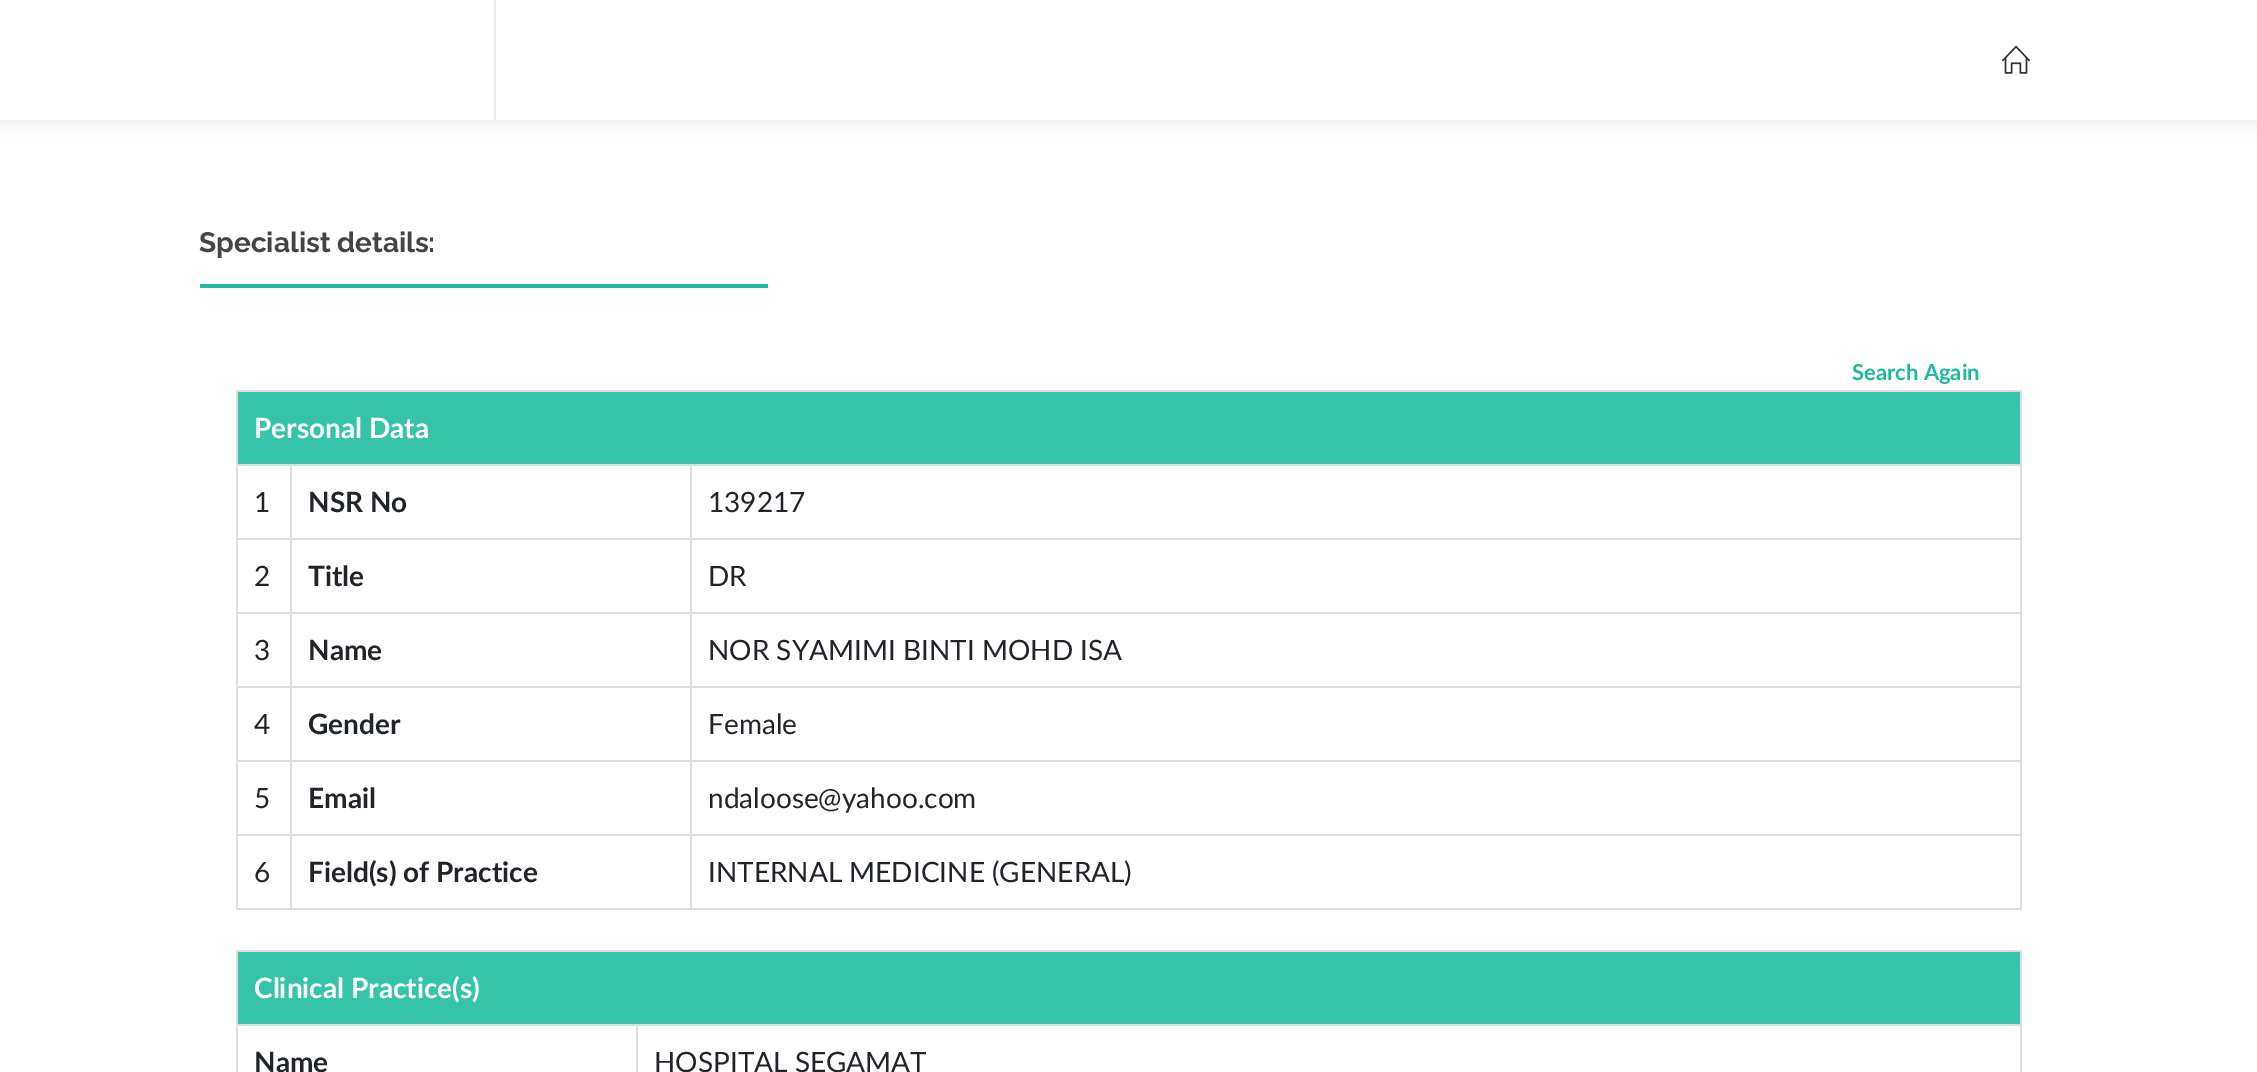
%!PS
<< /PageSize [2257 1072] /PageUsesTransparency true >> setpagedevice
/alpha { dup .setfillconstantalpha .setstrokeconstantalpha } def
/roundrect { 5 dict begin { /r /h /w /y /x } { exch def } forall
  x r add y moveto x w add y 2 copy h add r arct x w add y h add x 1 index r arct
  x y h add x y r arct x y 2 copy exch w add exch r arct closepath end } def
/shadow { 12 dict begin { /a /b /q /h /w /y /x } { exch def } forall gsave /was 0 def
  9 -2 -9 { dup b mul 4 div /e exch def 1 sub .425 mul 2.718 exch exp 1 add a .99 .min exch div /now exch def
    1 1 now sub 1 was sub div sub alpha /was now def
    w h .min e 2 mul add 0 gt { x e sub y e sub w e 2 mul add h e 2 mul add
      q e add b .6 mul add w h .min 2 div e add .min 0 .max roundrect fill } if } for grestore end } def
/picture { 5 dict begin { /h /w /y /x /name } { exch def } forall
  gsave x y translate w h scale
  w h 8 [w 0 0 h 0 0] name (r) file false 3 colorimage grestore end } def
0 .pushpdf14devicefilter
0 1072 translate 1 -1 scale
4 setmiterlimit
1 setgray
0 0 2257 1072 rectfill
0 setgray
0 0 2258 120 0 10 0.1 shadow
1 setgray
0 0 2257 120 rectfill
0.933 setgray
494 0 2 120 rectfill
(img1.rgb) 2002 45 28 29 picture
0.102 0.737 0.612 setrgbcolor
200 284 568 4 rectfill
/Raleway-Bold [28 0 0 -28 0 0] selectfont
0.267 setgray
199 252 moveto (Specialist details:) show
/Lato-Bold [22 0 0 -22 0 0] selectfont
0.102 0.737 0.612 setrgbcolor
1852 380 moveto (Search Again) show
0.867 setgray
236 390 1786 2 rectfill
2020 390 2 520 rectfill
236 908 1786 2 rectfill
236 390 2 520 rectfill
0.212 0.769 0.659 setrgbcolor
238 392 1782 72 rectfill
/Lato-Bold [28 0 0 -28 0 0] selectfont
1 setgray
254 438 moveto (Personal Data) show
0.867 setgray
690 464 1332 2 rectfill
690 538 1332 2 rectfill
690 612 1332 2 rectfill
690 686 1332 2 rectfill
690 760 1332 2 rectfill
690 834 1332 2 rectfill
690 834 2 76 rectfill
290 834 402 2 rectfill
690 760 2 76 rectfill
290 760 402 2 rectfill
690 686 2 76 rectfill
290 686 402 2 rectfill
690 612 2 76 rectfill
290 612 402 2 rectfill
690 538 2 76 rectfill
290 538 402 2 rectfill
690 464 2 76 rectfill
290 464 402 2 rectfill
290 834 2 76 rectfill
236 834 56 2 rectfill
290 760 2 76 rectfill
236 760 56 2 rectfill
290 686 2 76 rectfill
236 686 56 2 rectfill
290 612 2 76 rectfill
236 612 56 2 rectfill
290 538 2 76 rectfill
236 538 56 2 rectfill
290 464 2 76 rectfill
236 464 56 2 rectfill
/Lato-Regular [28 0 0 -28 0 0] selectfont
0.129 0.145 0.161 setrgbcolor
254 512 moveto (1) show
/Lato-Bold [28 0 0 -28 0 0] selectfont
308 512 moveto (NSR No) show
/Lato-Regular [28 0 0 -28 0 0] selectfont
708 512 moveto (139217) show
254 586 moveto (2) show
/Lato-Bold [28 0 0 -28 0 0] selectfont
308 586 moveto (Title) show
/Lato-Regular [28 0 0 -28 0 0] selectfont
708 586 moveto (DR) show
254 660 moveto (3) show
/Lato-Bold [28 0 0 -28 0 0] selectfont
308 660 moveto (Name) show
/Lato-Regular [28 0 0 -28 0 0] selectfont
708 660 moveto (NOR SYAMIMI BINTI MOHD ISA) show
254 734 moveto (4) show
/Lato-Bold [28 0 0 -28 0 0] selectfont
308 734 moveto (Gender) show
/Lato-Regular [28 0 0 -28 0 0] selectfont
708 734 moveto (Female) show
254 808 moveto (5) show
/Lato-Bold [28 0 0 -28 0 0] selectfont
308 808 moveto (Email) show
/Lato-Regular [28 0 0 -28 0 0] selectfont
708 808 moveto (ndaloose@yahoo.com) show
254 882 moveto (6) show
/Lato-Bold [28 0 0 -28 0 0] selectfont
308 882 moveto (Field\(s\) of Practice) show
/Lato-Regular [28 0 0 -28 0 0] selectfont
708 882 moveto (INTERNAL MEDICINE \(GENERAL\)) show
0.867 setgray
236 950 1786 2 rectfill
2020 950 2 122 rectfill
236 950 2 122 rectfill
0.212 0.769 0.659 setrgbcolor
238 952 1782 72 rectfill
/Lato-Bold [28 0 0 -28 0 0] selectfont
1 setgray
254 998 moveto (Clinical Practice\(s\)) show
0.867 setgray
636 1024 1386 2 rectfill
636 1024 2 48 rectfill
236 1024 402 2 rectfill
0.129 0.145 0.161 setrgbcolor
254 1072 moveto (Name) show
/Lato-Regular [28 0 0 -28 0 0] selectfont
654 1072 moveto (HOSPITAL SEGAMAT) show
.poppdf14devicefilter showpage
